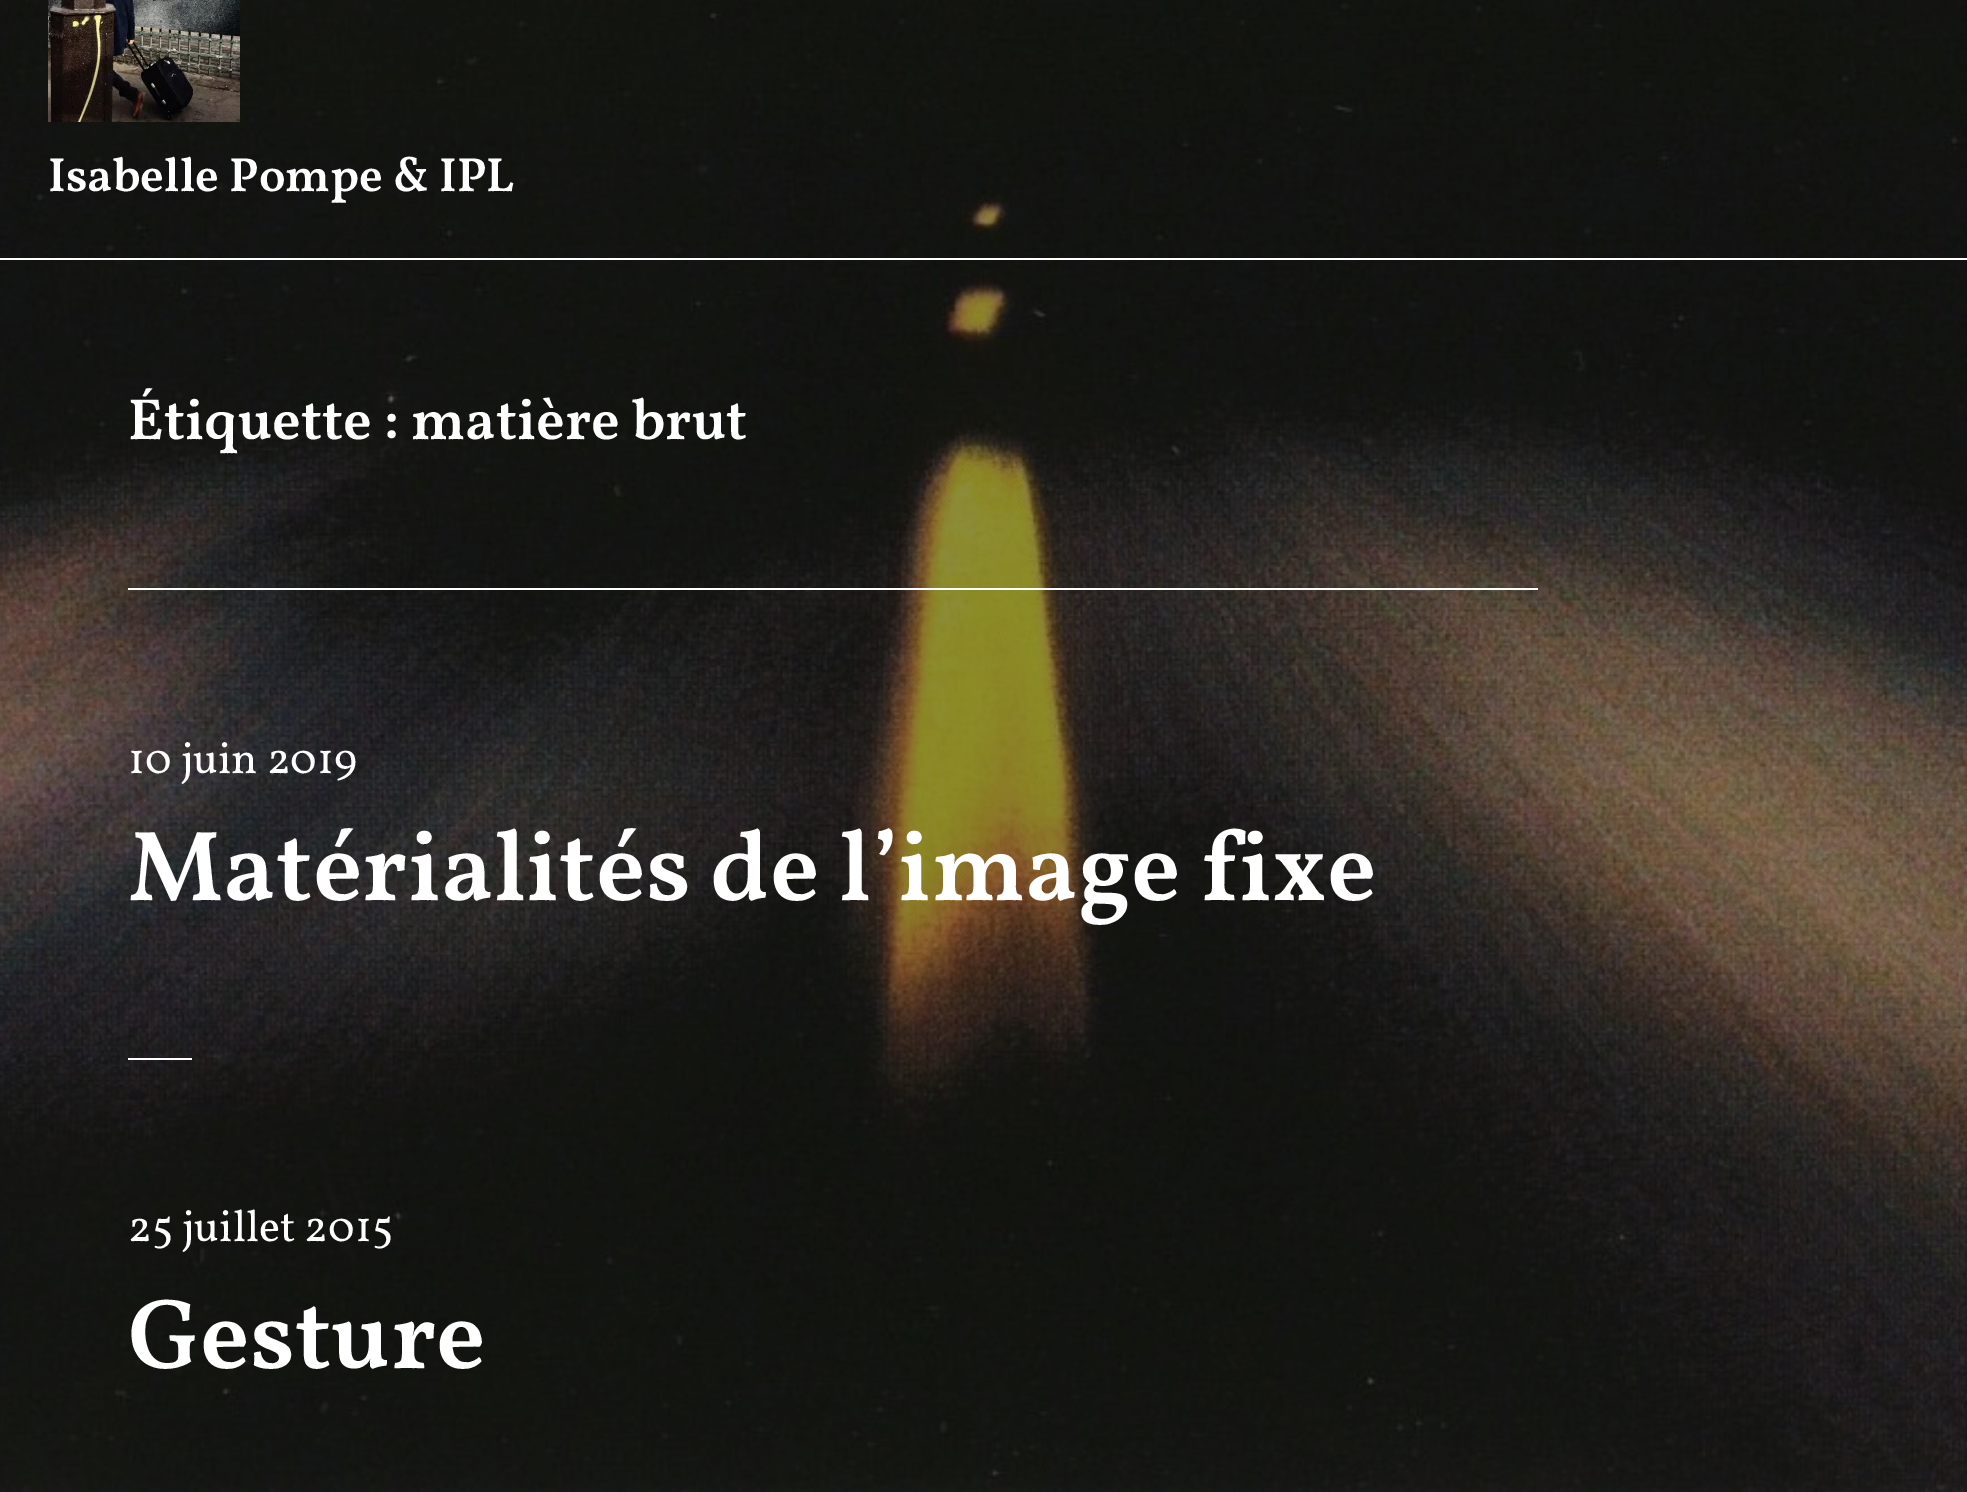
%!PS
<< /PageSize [1967 1492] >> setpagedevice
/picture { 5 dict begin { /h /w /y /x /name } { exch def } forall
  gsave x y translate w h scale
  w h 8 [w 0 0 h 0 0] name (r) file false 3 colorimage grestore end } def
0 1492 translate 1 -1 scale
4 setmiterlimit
1 setgray
0 0 1967 1492 rectfill
(img1.rgb) 0 0 1967 1492 picture
0 258 1967 2 rectfill
(img2.rgb) 48 0 192 122 picture
/Vollkorn-SemiBold [48 0 0 -48 0 0] selectfont
48 191 moveto (Isabelle Pompe & IPL) show
128 588 1410 2 rectfill
/Vollkorn-SemiBold [58 0 0 -58 0 0] selectfont
128 439 moveto (Étiquette : matière brut) show
/Vollkorn-Regular [44.25 0 0 -44.25 0 0] selectfont
128 773 moveto (10 juin 2019) show
/Vollkorn-SemiBold [100 0 0 -100 0 0] selectfont
128 900 moveto (Matérialités de l’image fixe) show
128 1058 64 2 rectfill
/Vollkorn-Regular [44.25 0 0 -44.25 0 0] selectfont
128 1241 moveto (25 juillet 2015) show
/Vollkorn-SemiBold [100 0 0 -100 0 0] selectfont
128 1368 moveto (Gesture) show
showpage
